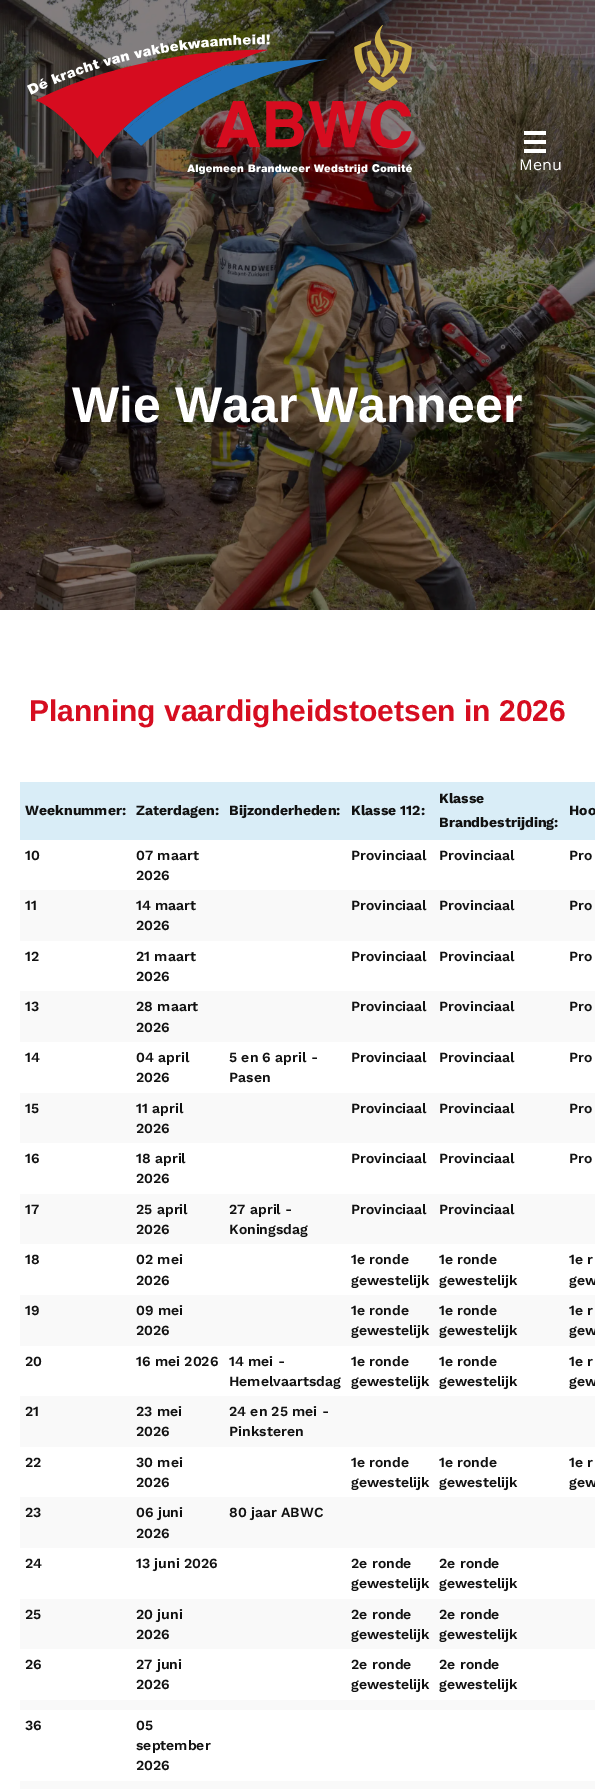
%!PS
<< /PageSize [595 1789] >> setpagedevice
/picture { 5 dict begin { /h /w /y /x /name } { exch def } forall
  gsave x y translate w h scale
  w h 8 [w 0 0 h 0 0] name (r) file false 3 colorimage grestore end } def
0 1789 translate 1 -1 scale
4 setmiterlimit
1 setgray
0 0 595 1789 rectfill
(img2.rgb) 0 0 595 610 picture
(img1.rgb) 27 25 385 149 picture
524 131 22 4 rectfill
524 140 22 4 rectfill
524 149 22 4 rectfill
/WorkSans-Regular [16 0 0 -16 0 0] selectfont
519 170 moveto (Menu) show
/LiberationSans-Bold [50 0 0 -50 0 0] selectfont
72 422 moveto (Wie Waar Wanneer) show
/LiberationSans-Bold [30 0 0 -30 0 0] selectfont
0.839 0.051 0.125 setrgbcolor
29 721 moveto (Planning vaardigheidstoetsen in 2026) show
0.851 0.929 0.969 setrgbcolor
20 782 575 58 rectfill
/WorkSans-Bold [14 0 0 -14 0 0] selectfont
0.067 setgray
25 815 moveto (Weeknummer:) show
136 815 moveto (Zaterdagen:) show
229 815 moveto (Bijzonderheden:) show
351 815 moveto (Klasse 112:) show
439 803 moveto (Klasse) show
439 827 moveto (Brandbestrijding:) show
569 815 moveto (Hoo) show
/WorkSans-SemiBold [14 0 0 -14 0 0] selectfont
25 860 moveto (10) show
136 860 moveto (07 maart) show
136 880 moveto (2026) show
351 860 moveto (Provinciaal) show
439 860 moveto (Provinciaal) show
569 860 moveto (Pro) show
0.976 setgray
20 890 575 51 rectfill
0.067 setgray
25 910 moveto (11) show
136 910 moveto (14 maart) show
136 930 moveto (2026) show
351 910 moveto (Provinciaal) show
439 910 moveto (Provinciaal) show
569 910 moveto (Pro) show
25 961 moveto (12) show
136 961 moveto (21 maart) show
136 981 moveto (2026) show
351 961 moveto (Provinciaal) show
439 961 moveto (Provinciaal) show
569 961 moveto (Pro) show
0.976 setgray
20 991 575 51 rectfill
0.067 setgray
25 1011 moveto (13) show
136 1011 moveto (28 maart) show
136 1032 moveto (2026) show
351 1011 moveto (Provinciaal) show
439 1011 moveto (Provinciaal) show
569 1011 moveto (Pro) show
25 1062 moveto (14) show
136 1062 moveto (04 april) show
136 1082 moveto (2026) show
229 1062 moveto (5 en 6 april -) show
229 1082 moveto (Pasen) show
351 1062 moveto (Provinciaal) show
439 1062 moveto (Provinciaal) show
569 1062 moveto (Pro) show
0.976 setgray
20 1093 575 50 rectfill
0.067 setgray
25 1113 moveto (15) show
136 1113 moveto (11 april) show
136 1133 moveto (2026) show
351 1113 moveto (Provinciaal) show
439 1113 moveto (Provinciaal) show
569 1113 moveto (Pro) show
25 1163 moveto (16) show
136 1163 moveto (18 april) show
136 1183 moveto (2026) show
351 1163 moveto (Provinciaal) show
439 1163 moveto (Provinciaal) show
569 1163 moveto (Pro) show
0.976 setgray
20 1194 575 50 rectfill
0.067 setgray
25 1214 moveto (17) show
136 1214 moveto (25 april) show
136 1234 moveto (2026) show
229 1214 moveto (27 april -) show
229 1234 moveto (Koningsdag) show
351 1214 moveto (Provinciaal) show
439 1214 moveto (Provinciaal) show
25 1264 moveto (18) show
136 1264 moveto (02 mei) show
136 1285 moveto (2026) show
351 1264 moveto (1e ronde) show
351 1285 moveto (gewestelijk) show
439 1264 moveto (1e ronde) show
439 1285 moveto (gewestelijk) show
569 1264 moveto (1e r) show
569 1285 moveto (gew) show
0.976 setgray
20 1295 575 51 rectfill
0.067 setgray
25 1315 moveto (19) show
136 1315 moveto (09 mei) show
136 1335 moveto (2026) show
351 1315 moveto (1e ronde) show
351 1335 moveto (gewestelijk) show
439 1315 moveto (1e ronde) show
439 1335 moveto (gewestelijk) show
569 1315 moveto (1e r) show
569 1335 moveto (gew) show
25 1366 moveto (20) show
136 1366 moveto (16 mei 2026) show
229 1366 moveto (14 mei -) show
229 1386 moveto (Hemelvaartsdag) show
351 1366 moveto (1e ronde) show
351 1386 moveto (gewestelijk) show
439 1366 moveto (1e ronde) show
439 1386 moveto (gewestelijk) show
569 1366 moveto (1e r) show
569 1386 moveto (gew) show
0.976 setgray
20 1396 575 51 rectfill
0.067 setgray
25 1416 moveto (21) show
136 1416 moveto (23 mei) show
136 1436 moveto (2026) show
229 1416 moveto (24 en 25 mei -) show
229 1436 moveto (Pinksteren) show
25 1467 moveto (22) show
136 1467 moveto (30 mei) show
136 1487 moveto (2026) show
351 1467 moveto (1e ronde) show
351 1487 moveto (gewestelijk) show
439 1467 moveto (1e ronde) show
439 1487 moveto (gewestelijk) show
569 1467 moveto (1e r) show
569 1487 moveto (gew) show
0.976 setgray
20 1497 575 51 rectfill
0.067 setgray
25 1517 moveto (23) show
136 1517 moveto (06 juni) show
136 1538 moveto (2026) show
229 1517 moveto (80 jaar ABWC) show
25 1568 moveto (24) show
136 1568 moveto (13 juni 2026) show
351 1568 moveto (2e ronde) show
351 1588 moveto (gewestelijk) show
439 1568 moveto (2e ronde) show
439 1588 moveto (gewestelijk) show
0.976 setgray
20 1599 575 50 rectfill
0.067 setgray
25 1619 moveto (25) show
136 1619 moveto (20 juni) show
136 1639 moveto (2026) show
351 1619 moveto (2e ronde) show
351 1639 moveto (gewestelijk) show
439 1619 moveto (2e ronde) show
439 1639 moveto (gewestelijk) show
25 1669 moveto (26) show
136 1669 moveto (27 juni) show
136 1689 moveto (2026) show
351 1669 moveto (2e ronde) show
351 1689 moveto (gewestelijk) show
439 1669 moveto (2e ronde) show
439 1689 moveto (gewestelijk) show
0.976 setgray
20 1700 575 10 rectfill
0.067 setgray
25 1730 moveto (36) show
136 1730 moveto (05) show
136 1750 moveto (september) show
136 1770 moveto (2026) show
0.976 setgray
20 1781 575 8 rectfill
showpage
